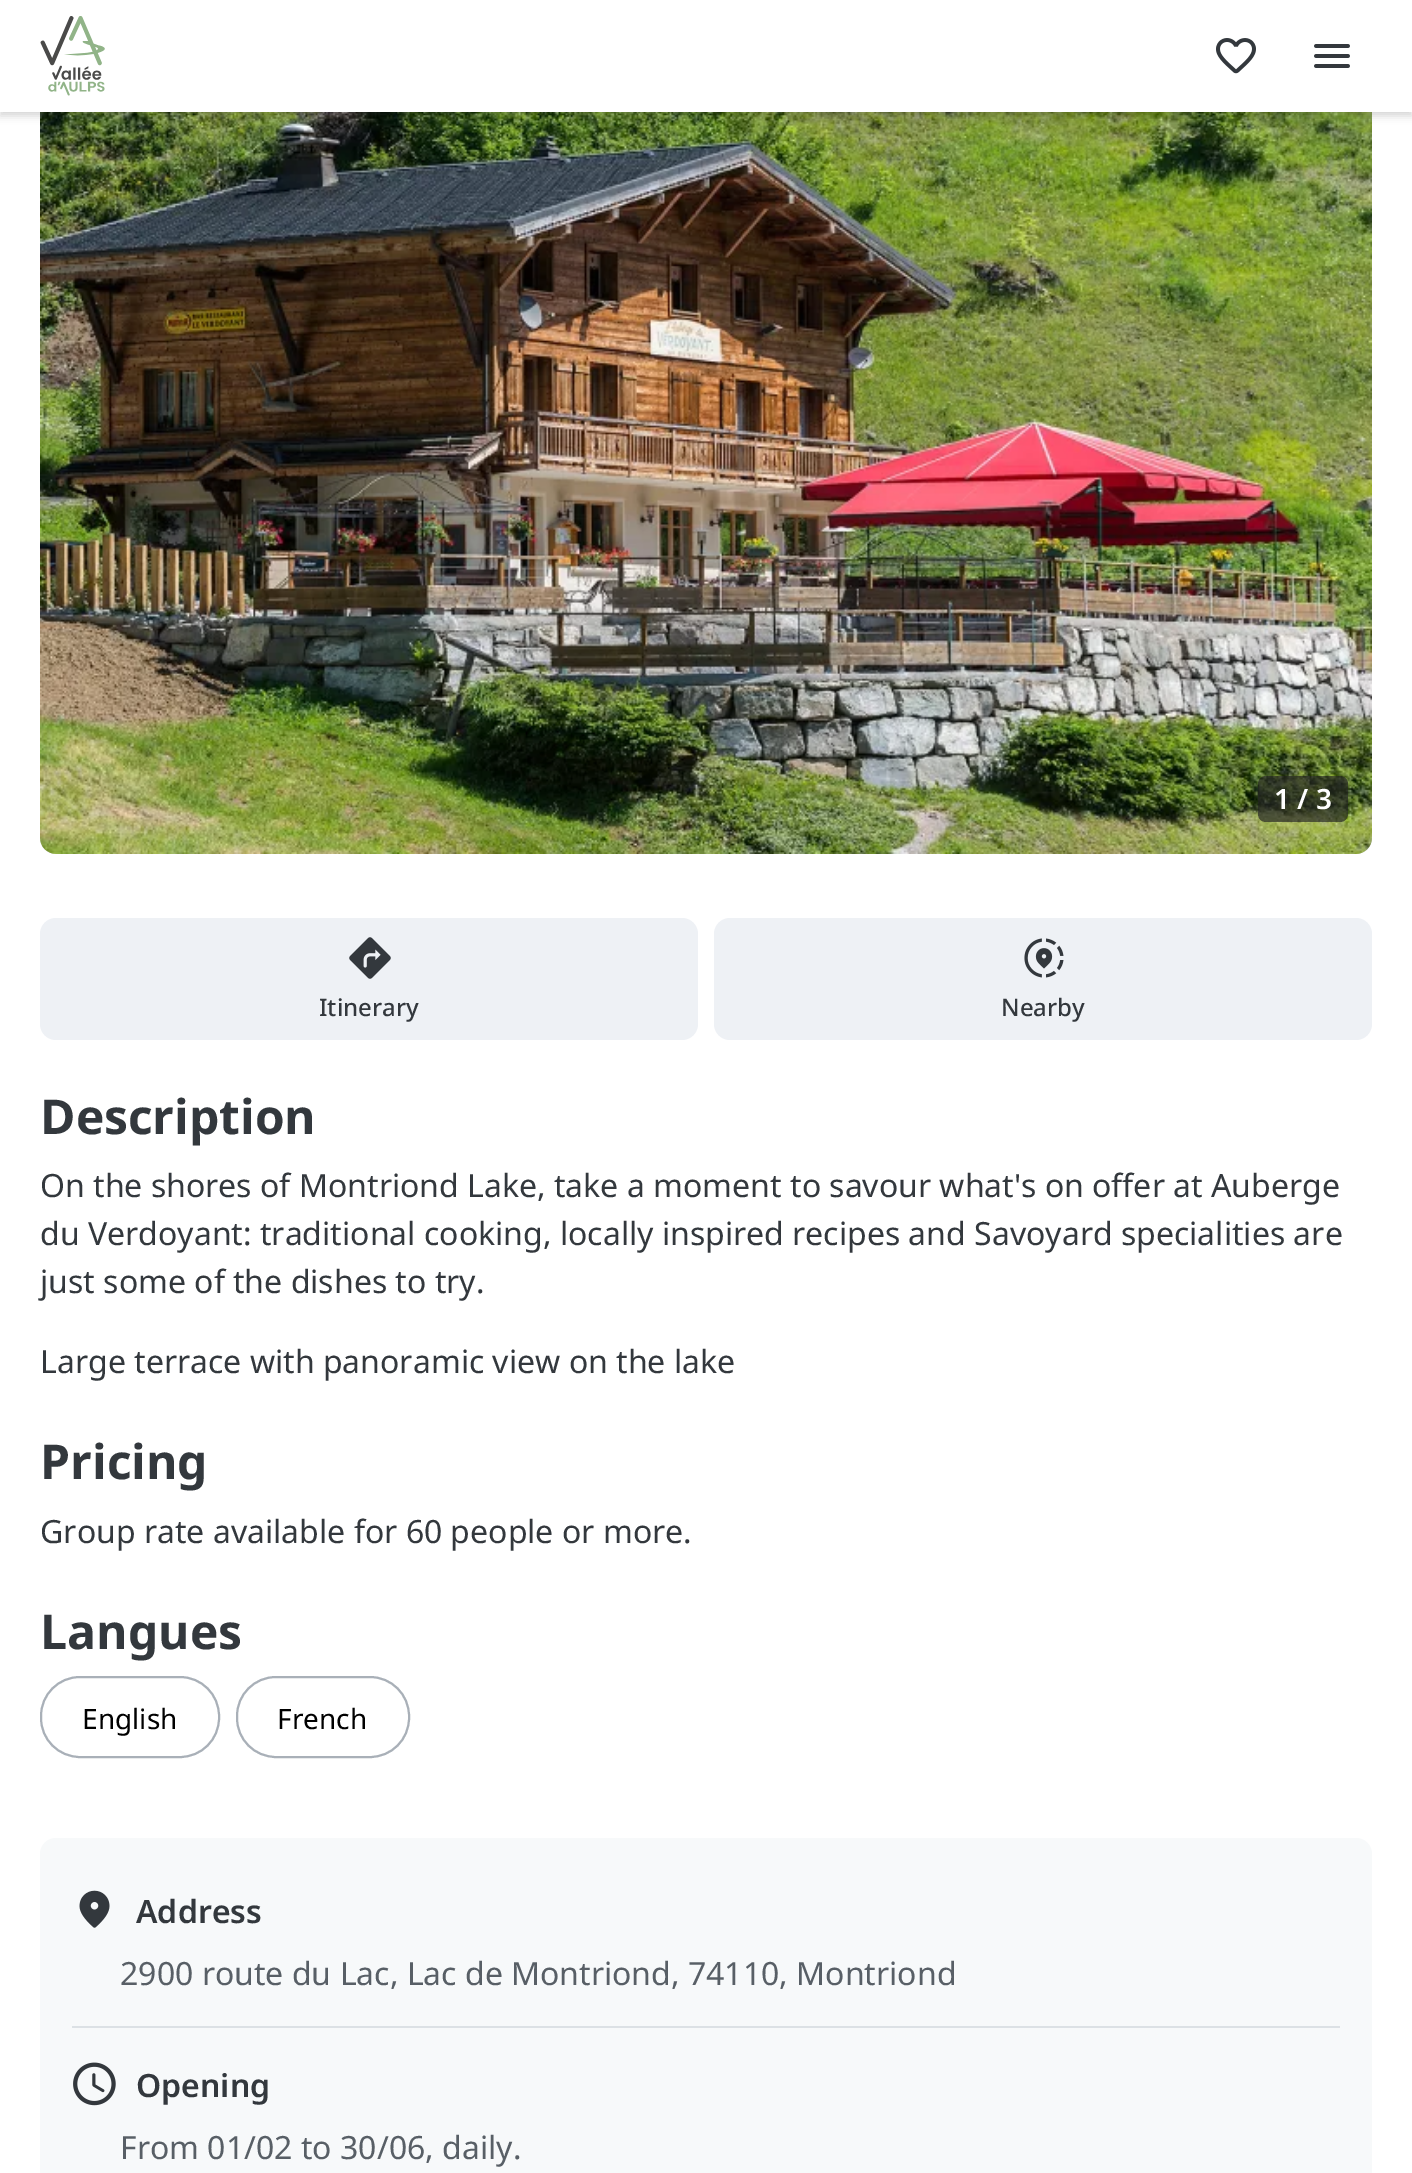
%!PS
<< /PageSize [1412 2173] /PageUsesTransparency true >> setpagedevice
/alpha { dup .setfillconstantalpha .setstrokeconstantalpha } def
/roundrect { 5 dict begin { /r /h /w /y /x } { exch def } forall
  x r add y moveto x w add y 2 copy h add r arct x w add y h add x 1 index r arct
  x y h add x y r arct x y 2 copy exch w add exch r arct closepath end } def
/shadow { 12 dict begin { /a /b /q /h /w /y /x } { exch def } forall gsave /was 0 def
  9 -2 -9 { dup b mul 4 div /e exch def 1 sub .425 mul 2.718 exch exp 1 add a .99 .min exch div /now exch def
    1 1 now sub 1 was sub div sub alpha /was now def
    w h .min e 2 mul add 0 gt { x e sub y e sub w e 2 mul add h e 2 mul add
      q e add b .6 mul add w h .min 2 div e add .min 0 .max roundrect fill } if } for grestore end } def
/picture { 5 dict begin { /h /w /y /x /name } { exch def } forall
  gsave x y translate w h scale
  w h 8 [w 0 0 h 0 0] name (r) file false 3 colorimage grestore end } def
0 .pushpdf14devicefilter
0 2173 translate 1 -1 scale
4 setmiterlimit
1 setgray
0 0 1412 2173 rectfill
(img4.rgb) 40 838 1332 16 picture
(img5.rgb) 40 112 1332 742 picture
0 setgray
0 4 1412 112 0 4 0.16 shadow
1 setgray
0 0 1412 112 rectfill
(img1.rgb) 40 16 65 80 picture
(img2.rgb) 1216 38 40 36 picture
(img3.rgb) 1314 44 36 24 picture
0.66 alpha
0.133 setgray
1258 776 90 46 8 roundrect fill
/NotoSans-SemiBold [28 0 0 -28 0 0] selectfont
1 alpha
1 setgray
1274 809 moveto (1 / 3) show
0.933 0.945 0.961 setrgbcolor
40 918 658 122 16 roundrect fill
(img6.rgb) 349 937 42 42 picture
/NotoSans-Medium [24 0 0 -24 0 0] selectfont
0.2 0.22 0.239 setrgbcolor
319 1016 moveto (Itinerary) show
0.933 0.945 0.961 setrgbcolor
714 918 658 122 16 roundrect fill
(img7.rgb) 1024 938 40 40 picture
0.2 0.22 0.239 setrgbcolor
1001 1016 moveto (Nearby) show
/NotoSans-Bold [48 0 0 -48 0 0] selectfont
40 1134 moveto (Description) show
/NotoSans-Regular [32 0 0 -32 0 0] selectfont
40 1197 moveto (On the shores of Montriond Lake, take a moment to savour what's on offer at Auberge) show
40 1245 moveto (du Verdoyant: traditional cooking, locally inspired recipes and Savoyard specialities are) show
40 1293 moveto (just some of the dishes to try.) show
40 1373 moveto (Large terrace with panoramic view on the lake) show
/NotoSans-Bold [48 0 0 -48 0 0] selectfont
40 1479 moveto (Pricing) show
/NotoSans-Regular [32 0 0 -32 0 0] selectfont
40 1543 moveto (Group rate available for 60 people or more.) show
/NotoSans-Bold [48 0 0 -48 0 0] selectfont
40 1649 moveto (Langues) show
0.663 0.69 0.722 setrgbcolor
2 setlinewidth
41 1677 178 80 39 roundrect stroke
/NotoSans-Regular [28 0 0 -28 0 0] selectfont
0 setgray
82 1729 moveto (English) show
0.663 0.69 0.722 setrgbcolor
237 1677 172 80 39 roundrect stroke
0 setgray
277 1729 moveto (French) show
0.969 0.976 0.98 setrgbcolor
40 1838 1332 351 16 roundrect fill
0.863 0.882 0.898 setrgbcolor
72 2026 1268 2 rectfill
(img8.rgb) 79 1890 31 38 picture
/NotoSans-SemiBold [32 0 0 -32 0 0] selectfont
0.2 0.22 0.239 setrgbcolor
136 1923 moveto (Address) show
/NotoSans-Regular [32 0 0 -32 0 0] selectfont
0.345 0.373 0.4 setrgbcolor
120 1985 moveto (2900 route du Lac, Lac de Montriond, 74110, Montriond) show
(img9.rgb) 73 2062 43 44 picture
/NotoSans-SemiBold [32 0 0 -32 0 0] selectfont
0.2 0.22 0.239 setrgbcolor
136 2097 moveto (Opening) show
/NotoSans-Regular [32 0 0 -32 0 0] selectfont
0.345 0.373 0.4 setrgbcolor
120 2159 moveto (From 01/02 to 30/06, daily.) show
.poppdf14devicefilter showpage
